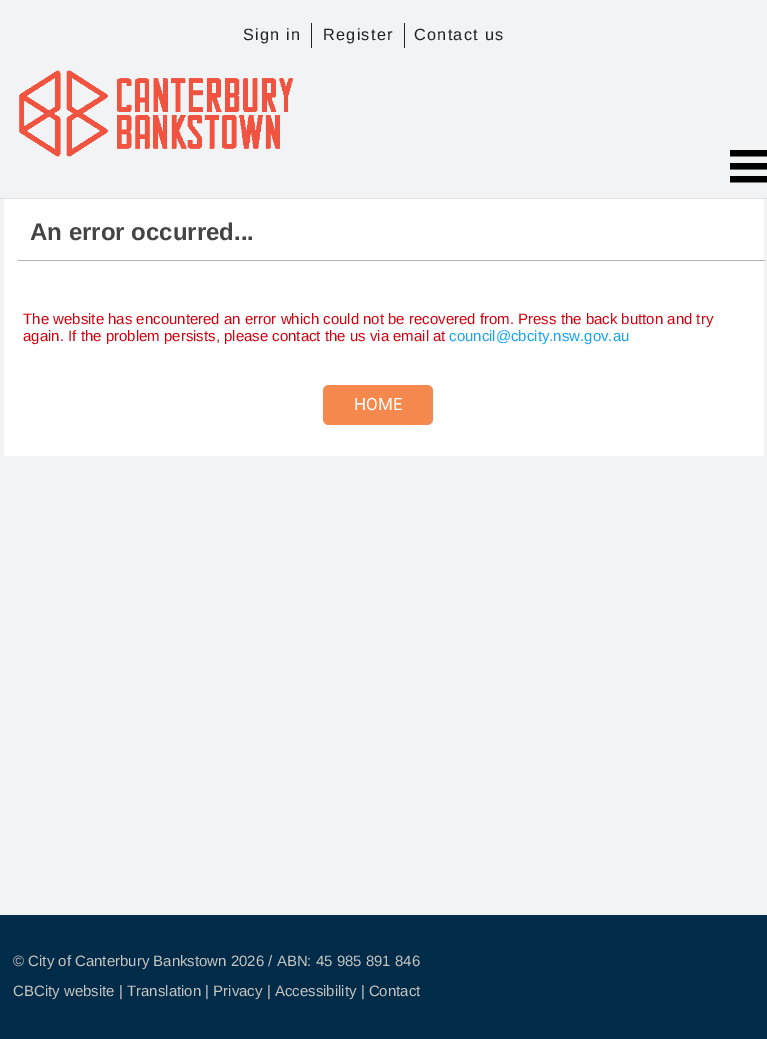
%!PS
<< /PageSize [767 1039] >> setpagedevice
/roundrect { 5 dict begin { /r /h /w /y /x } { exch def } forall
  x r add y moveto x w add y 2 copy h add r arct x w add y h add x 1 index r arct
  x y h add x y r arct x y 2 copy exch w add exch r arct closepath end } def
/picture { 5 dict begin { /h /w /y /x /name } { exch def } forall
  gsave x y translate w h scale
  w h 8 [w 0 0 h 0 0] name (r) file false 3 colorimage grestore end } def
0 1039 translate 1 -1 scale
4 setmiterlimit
0.945 0.953 0.957 setrgbcolor
0 0 767 1039 rectfill
0.878 setgray
0 198 767 1 rectfill
/LiberationSans-Regular [16.25 0 0 -16.25 0 0] selectfont
0.133 setgray
243 40 moveto 1.25 0 (Sign in) ashow
311 23 1 25 rectfill
323 40 moveto 1.25 0 (Register) ashow
404 23 1 25 rectfill
414 40 moveto 1.25 0 (Contact us) ashow
(img1.rgb) 19 70 274 87 picture
(img2.rgb) 730 150 37 33 picture
1 setgray
4 199 760 257 rectfill
0.702 setgray
18 260 747 1 rectfill
/LiberationSans-Bold [24 0 0 -24 0 0] selectfont
0.267 setgray
30 240 moveto (An error occurred...) show
/LiberationSans-Regular [15 0 0 -15 0 0] selectfont
0.835 0 0.055 setrgbcolor
23 324 moveto (The website has encountered an error which could not be recovered from. Press the back button and try) show
23 341 moveto (again. If the problem persists, please contact the us via email at) show
0.075 0.639 0.969 setrgbcolor
449 341 moveto (council@cbcity.nsw.gov.au) show
0.961 0.533 0.298 setrgbcolor
323 385 110 40 6 roundrect fill
/Roboto-Regular [17 0 0 -17 0 0] selectfont
1 setgray
354 410 moveto (HOME) show
0 0.169 0.286 setrgbcolor
0 915 767 124 rectfill
/LiberationSans-Regular [15 0 0 -15 0 0] selectfont
0.784 0.769 0.749 setrgbcolor
13 966 moveto (© City of Canterbury Bankstown 2026 / ABN: 45 985 891 846) show
13 996 moveto (CBCity website | Translation | Privacy | Accessibility | Contact) show
showpage
